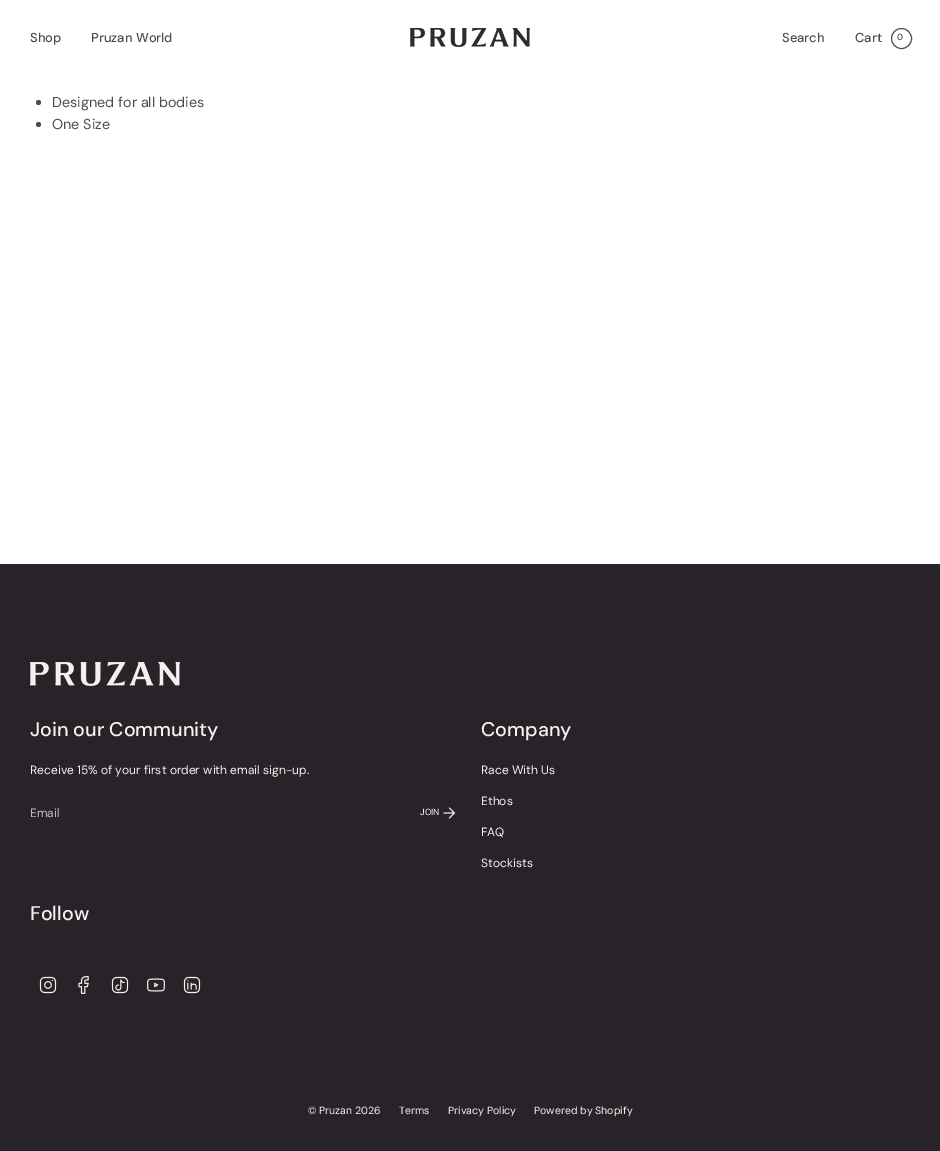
%!PS
<< /PageSize [940 1151] >> setpagedevice
/picture { 5 dict begin { /h /w /y /x /name } { exch def } forall
  gsave x y translate w h scale
  w h 8 [w 0 0 h 0 0] name (r) file false 3 colorimage grestore end } def
0 1151 translate 1 -1 scale
4 setmiterlimit
1 setgray
0 0 940 1151 rectfill
/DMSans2-Medium [13 0 0 -13 0 0] selectfont
0.302 0.294 0.31 setrgbcolor
30 42 moveto (Shop) show
91 42 moveto (Pruzan World) show
(img1.rgb) 410 28 120 19 picture
782 42 moveto (Search) show
855 42 moveto (Cart) show
newpath 901.5 38.5 10 0 360 arc closepath stroke
/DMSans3-Medium [9 0 0 -9 0 0] selectfont
897 40 moveto (0) show
newpath 38.5 102.5 2.5 0 360 arc closepath fill
/DMSans-Regular [14.4 0 0 -14.4 0 0] selectfont
52 107 moveto (Designed for all bodies) show
newpath 38.5 124.5 2.5 0 360 arc closepath fill
52 129 moveto (One Size) show
0.157 0.137 0.157 setrgbcolor
0 564 940 587 rectfill
(img2.rgb) 30 662 150 24 picture
/DMSans-Medium [19.75 0 0 -19.75 0 0] selectfont
0.957 0.953 0.937 setrgbcolor
30 736 moveto (Join our Community) show
/DMSans3-Regular [12 0 0 -12 0 0] selectfont
30 774 moveto (Receive 15% of your first order with email sign-up.) show
0.757 0.749 0.741 setrgbcolor
30 817 moveto (Email) show
/DMSans2-Regular [9 0 0 -9 0 0] selectfont
0.957 0.953 0.937 setrgbcolor
420 815 moveto (JOIN) show
(img3.rgb) 443 807 12 12 picture
/DMSans-Medium [19.75 0 0 -19.75 0 0] selectfont
481 736 moveto (Company) show
/DMSans3-Regular [12 0 0 -12 0 0] selectfont
481 774 moveto (Race With Us) show
481 805 moveto (Ethos) show
481 836 moveto (FAQ) show
481 867 moveto (Stockists) show
/DMSans-Medium [19.75 0 0 -19.75 0 0] selectfont
30 920 moveto (Follow) show
(img4.rgb) 39 976 18 18 picture
(img5.rgb) 78 976 11 18 picture
(img6.rgb) 111 976 18 18 picture
(img7.rgb) 147 978 18 14 picture
(img8.rgb) 183 976 18 18 picture
/DMSans2-Regular [10.5 0 0 -10.5 0 0] selectfont
308 1114 moveto (© Pruzan 2026) show
399 1114 moveto (Terms) show
448 1114 moveto (Privacy Policy) show
534 1114 moveto (Powered by Shopify) show
showpage
